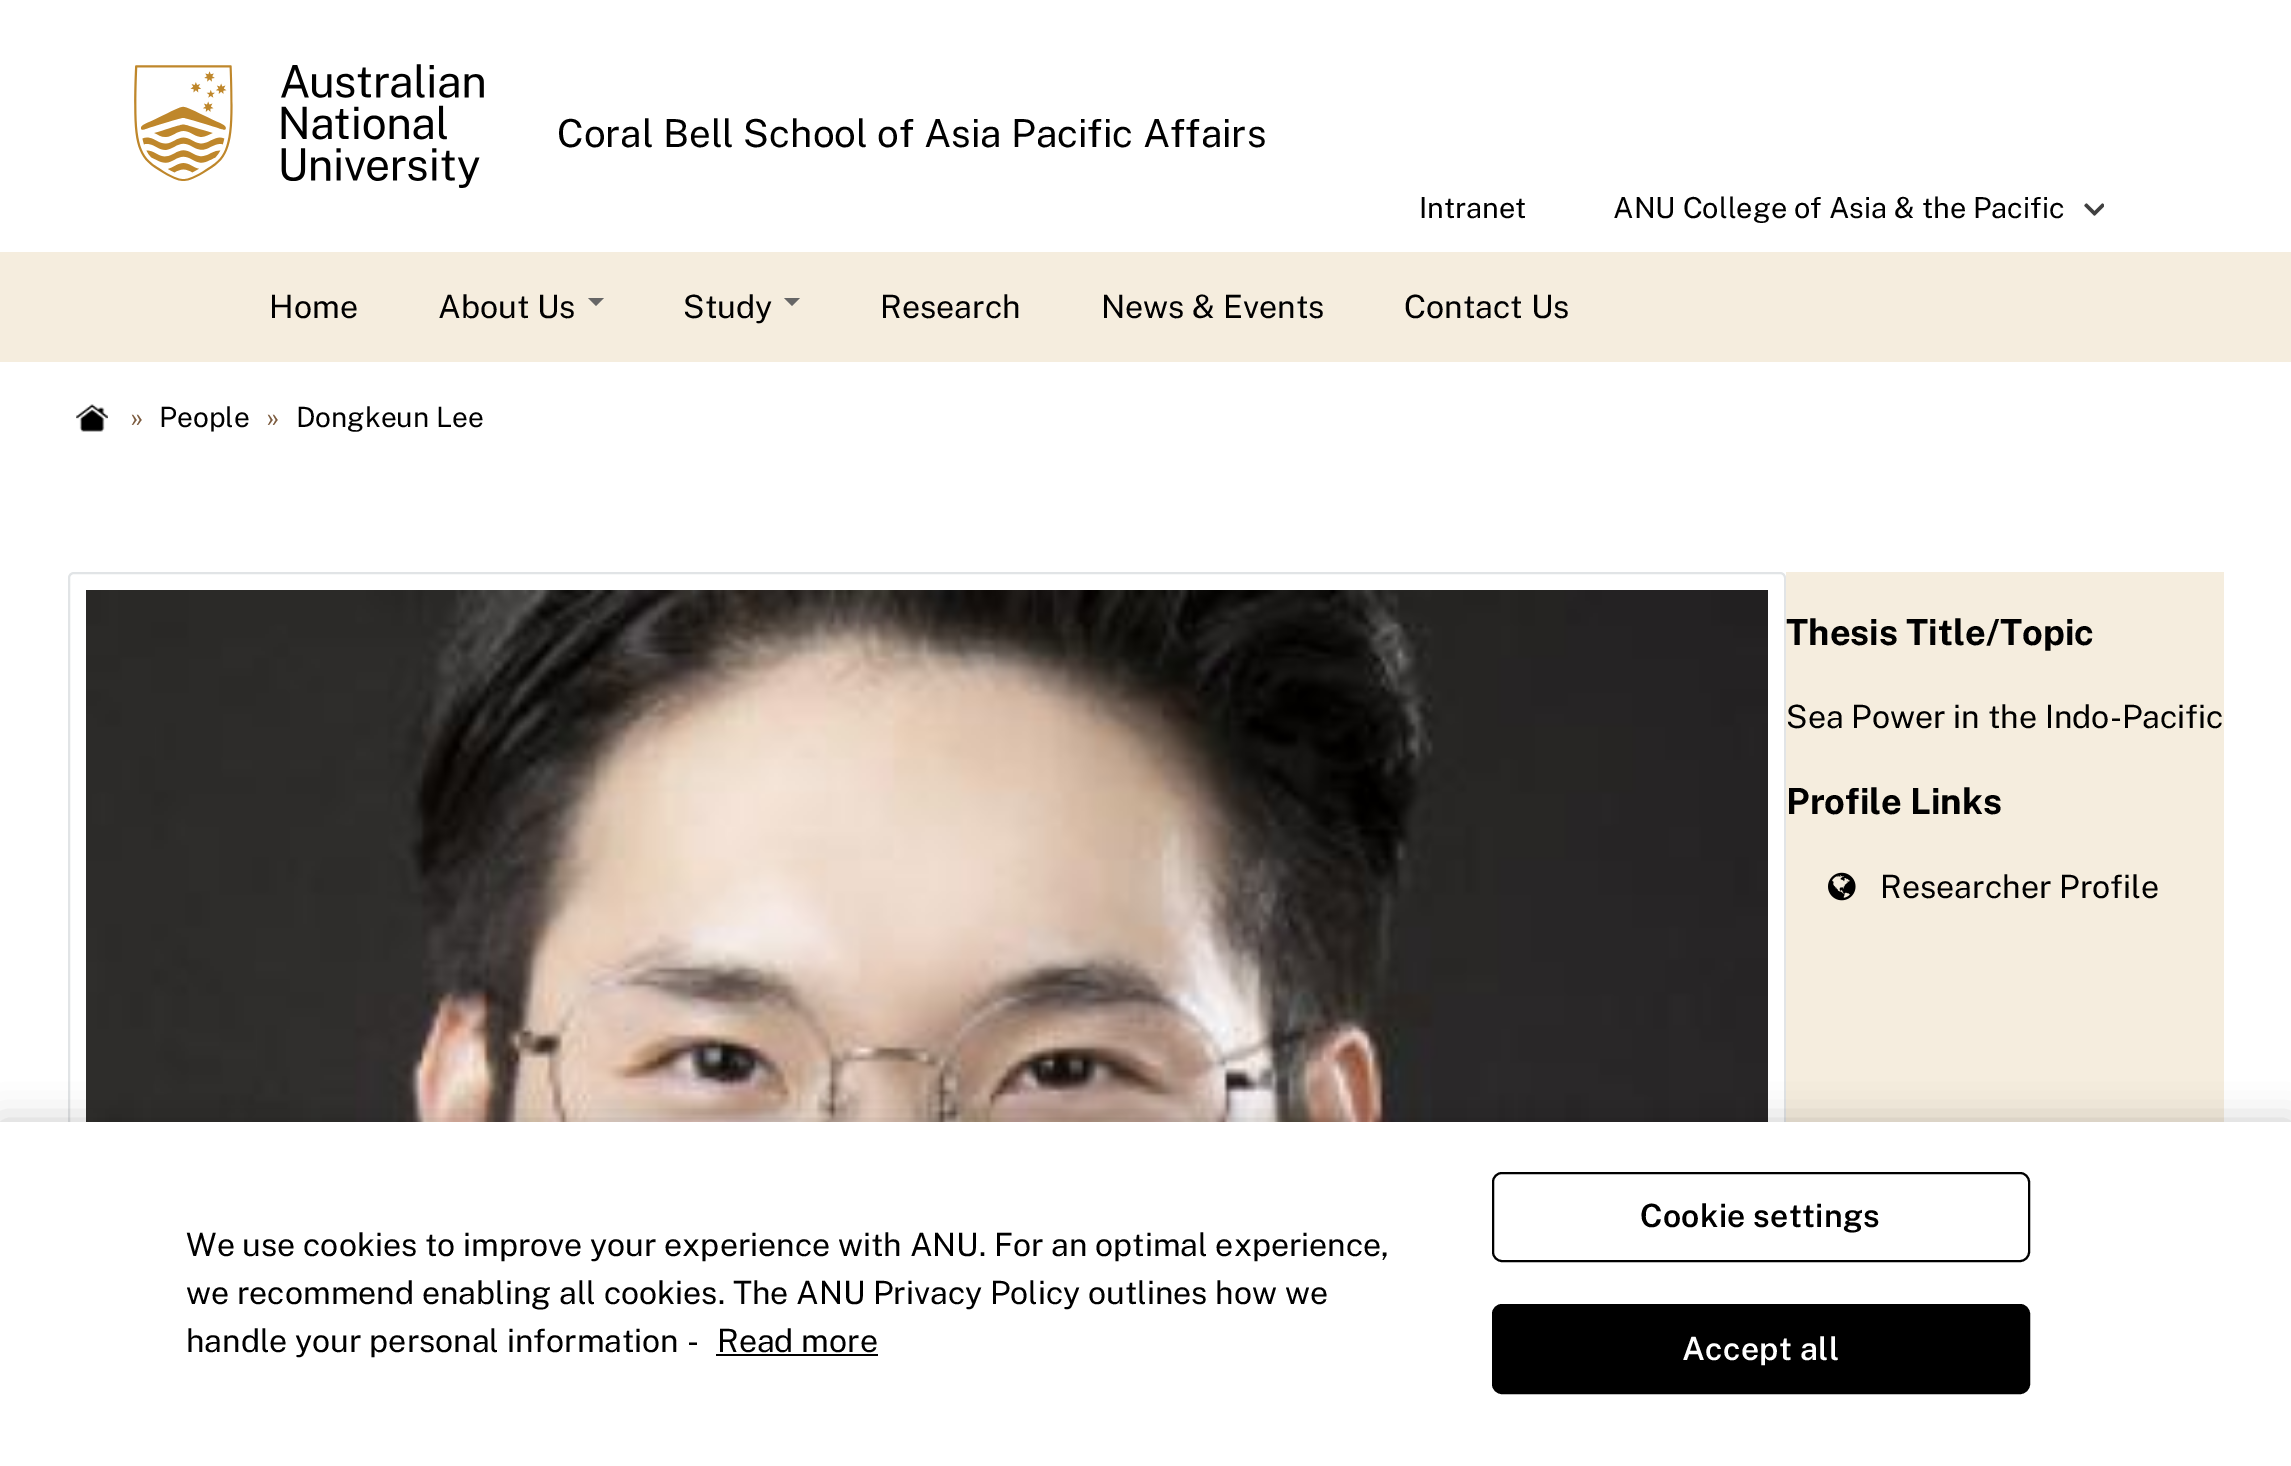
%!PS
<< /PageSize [2291 1466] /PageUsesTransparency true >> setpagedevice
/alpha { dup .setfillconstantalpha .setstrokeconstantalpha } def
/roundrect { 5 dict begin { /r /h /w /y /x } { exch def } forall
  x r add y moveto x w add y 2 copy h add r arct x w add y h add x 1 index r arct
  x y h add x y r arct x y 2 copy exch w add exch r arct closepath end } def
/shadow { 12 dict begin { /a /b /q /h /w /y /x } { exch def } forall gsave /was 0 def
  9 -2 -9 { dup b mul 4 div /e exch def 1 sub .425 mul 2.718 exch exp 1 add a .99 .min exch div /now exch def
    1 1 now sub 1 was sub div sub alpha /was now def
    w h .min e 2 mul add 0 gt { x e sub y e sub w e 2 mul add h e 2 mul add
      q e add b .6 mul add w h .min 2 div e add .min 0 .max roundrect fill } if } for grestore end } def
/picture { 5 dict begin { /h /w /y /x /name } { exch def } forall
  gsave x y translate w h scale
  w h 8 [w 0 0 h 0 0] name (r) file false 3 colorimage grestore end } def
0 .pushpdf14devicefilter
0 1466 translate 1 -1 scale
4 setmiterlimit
1 setgray
0 0 2291 1466 rectfill
(img1.rgb) 134 64 350 124 picture
/PublicSans-Regular [38.6 0 0 -38.6 0 0] selectfont
0 setgray
557 147 moveto (Coral Bell School of Asia Pacific Affairs) show
/PublicSans-Regular [28.9 0 0 -28.9 0 0] selectfont
1419 218 moveto (Intranet) show
1613 218 moveto (ANU College of Asia & the Pacific) show
(img2.rgb) 2084 203 20 13 picture
0.961 0.929 0.871 setrgbcolor
0 252 2291 110 rectfill
/PublicSans-Regular [32.1 0 0 -32.1 0 0] selectfont
0 setgray
269 318 moveto (Home) show
438 318 moveto (About Us) show
0.4 setgray
newpath 588 298 moveto 604 298 lineto 596 306 lineto closepath fill
0 setgray
683 318 moveto (Study) show
0.4 setgray
newpath 784 298 moveto 800 298 lineto 792 306 lineto closepath fill
0 setgray
880 318 moveto (Research) show
1101 318 moveto (News & Events) show
1404 318 moveto (Contact Us) show
(img3.rgb) 76 404 32 28 picture
/PublicSans-Regular [28 0 0 -28 0 0] selectfont
0.482 0.353 0.239 setrgbcolor
130 427 moveto (») show
0 setgray
159 427 moveto (People) show
0.482 0.353 0.239 setrgbcolor
266 427 moveto (») show
0 setgray
296 427 moveto (Dongkeun Lee) show
0.882 0.894 0.902 setrgbcolor
2 setlinewidth
69 573 1716 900 5 roundrect stroke
(img4.rgb) 86 590 1682 532 picture
0.961 0.929 0.871 setrgbcolor
1786 572 438 550 rectfill
/PublicSans-Bold [36.1 0 0 -36.1 0 0] selectfont
0 setgray
1786 645 moveto (Thesis Title/Topic) show
/PublicSans-Regular [32.1 0 0 -32.1 0 0] selectfont
1786 728 moveto (Sea Power in the Indo-Pacific) show
/PublicSans-Bold [36.1 0 0 -36.1 0 0] selectfont
1786 814 moveto (Profile Links) show
(img5.rgb) 1828 872 28 29 picture
/PublicSans-Regular [32.1 0 0 -32.1 0 0] selectfont
1880 898 moveto (Researcher Profile) show
0 1122 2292 344 0 18 0.2 shadow
1 setgray
0 1122 2291 344 rectfill
/PublicSans-Regular [32 0 0 -32 0 0] selectfont
0 setgray
186 1256 moveto (We use cookies to improve your experience with ANU. For an optimal experience,) show
186 1304 moveto (we recommend enabling all cookies. The ANU Privacy Policy outlines how we) show
186 1352 moveto (handle your personal information -) show
717 1352 moveto (Read more) show
716 1354 162 2 rectfill
1493 1173 536 88 9 roundrect stroke
/PublicSans-SemiBold [32 0 0 -32 0 0] selectfont
1640 1227 moveto 0.3 0 (Cookie settings) ashow
1493 1305 536 88 9 roundrect gsave fill grestore
stroke
1 setgray
1682 1360 moveto 0.3 0 (Accept all) ashow
.poppdf14devicefilter showpage
